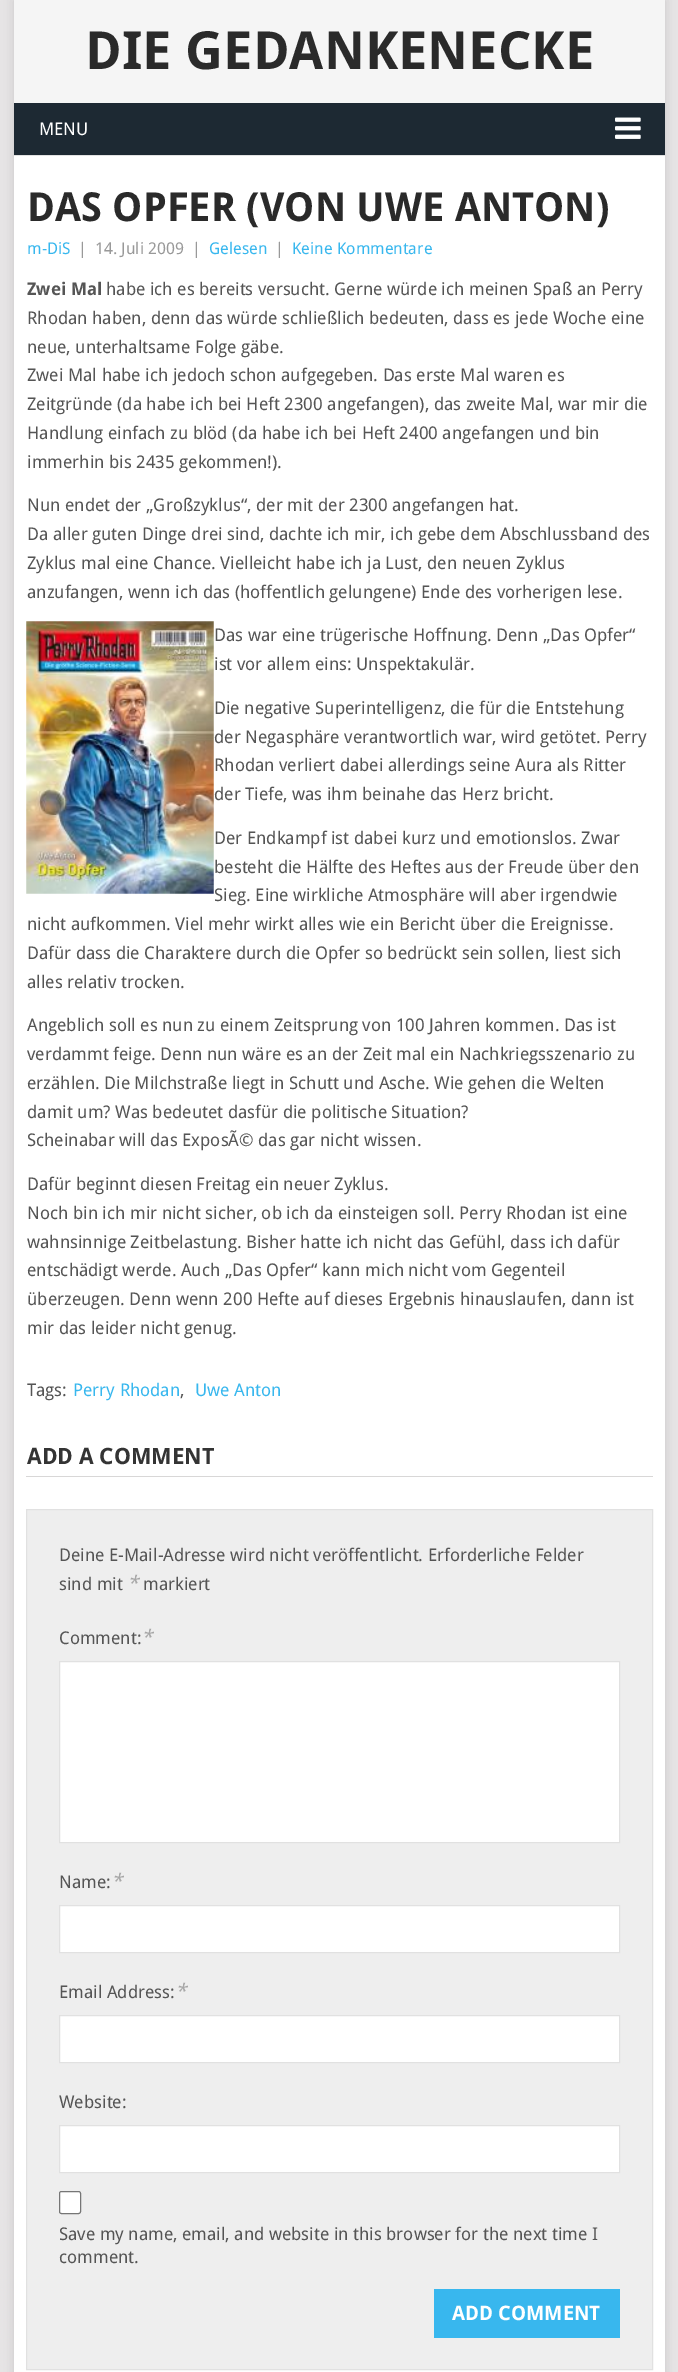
%!PS
<< /PageSize [678 2372] /PageUsesTransparency true >> setpagedevice
/alpha { dup .setfillconstantalpha .setstrokeconstantalpha } def
/roundrect { 5 dict begin { /r /h /w /y /x } { exch def } forall
  x r add y moveto x w add y 2 copy h add r arct x w add y h add x 1 index r arct
  x y h add x y r arct x y 2 copy exch w add exch r arct closepath end } def
/shadow { 12 dict begin { /a /b /q /h /w /y /x } { exch def } forall gsave /was 0 def
  9 -2 -9 { dup b mul 4 div /e exch def 1 sub .425 mul 2.718 exch exp 1 add a .99 .min exch div /now exch def
    1 1 now sub 1 was sub div sub alpha /was now def
    w h .min e 2 mul add 0 gt { x e sub y e sub w e 2 mul add h e 2 mul add
      q e add b .6 mul add w h .min 2 div e add .min 0 .max roundrect fill } if } for grestore end } def
/picture { 5 dict begin { /h /w /y /x /name } { exch def } forall
  gsave x y translate w h scale
  w h 8 [w 0 0 h 0 0] name (r) file false 3 colorimage grestore end } def
0 .pushpdf14devicefilter
0 2372 translate 1 -1 scale
4 setmiterlimit
0.906 0.898 0.902 setrgbcolor
0 0 678 2372 rectfill
0.196 setgray
14 0 651 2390 0 6 0.17 shadow
1 setgray
14 156 651 2216 rectfill
0.961 setgray
14 0 651 103 rectfill
/DroidSans-Bold [52.5 0 0 -52.5 0 0] selectfont
0.165 setgray
85 69 moveto (DIE GEDANKENECKE) show
0.114 0.161 0.2 setrgbcolor
14 103 651 52 rectfill
/DroidSans-Regular [17.5 0 0 -17.5 0 0] selectfont
1 setgray
39 135 moveto (MENU) show
(img1.rgb) 615 117 26 22 picture
0.886 setgray
14 155 651 1 rectfill
/DroidSans-Bold [40 0 0 -40 0 0] selectfont
0.165 setgray
27 221 moveto (DAS OPFER \(VON UWE ANTON\)) show
/DroidSans-Regular [16.25 0 0 -16.25 0 0] selectfont
0.22 0.718 0.933 setrgbcolor
27 254 moveto (m-DiS) show
0.6 setgray
78 254 moveto (|) show
95 254 moveto (14. Juli 2009) show
192 254 moveto (|) show
0.22 0.718 0.933 setrgbcolor
209 254 moveto (Gelesen) show
0.6 setgray
275 254 moveto (|) show
0.22 0.718 0.933 setrgbcolor
292 254 moveto (Keine Kommentare) show
/DroidSans-Bold [17.5 0 0 -17.5 0 0] selectfont
0.333 setgray
27 295 moveto (Zwei Mal) show
/DroidSans-Regular [17.5 0 0 -17.5 0 0] selectfont
106 295 moveto (habe ich es bereits versucht. Gerne würde ich meinen Spaß an Perry) show
27 324 moveto (Rhodan haben, denn das würde schließlich bedeuten, dass es jede Woche eine) show
27 353 moveto (neue, unterhaltsame Folge gäbe.) show
27 381 moveto (Zwei Mal habe ich jedoch schon aufgegeben. Das erste Mal waren es) show
27 410 moveto (Zeitgründe \(da habe ich bei Heft 2300 angefangen\), das zweite Mal, war mir die) show
27 439 moveto (Handlung einfach zu blöd \(da habe ich bei Heft 2400 angefangen und bin) show
27 468 moveto (immerhin bis 2435 gekommen!\).) show
27 511 moveto (Nun endet der „Großzyklus“, der mit der 2300 angefangen hat.) show
27 540 moveto (Da aller guten Dinge drei sind, dachte ich mir, ich gebe dem Abschlussband des) show
27 569 moveto (Zyklus mal eine Chance. Vielleicht habe ich ja Lust, den neuen Zyklus) show
27 598 moveto (anzufangen, wenn ich das \(hoffentlich gelungene\) Ende des vorherigen lese.) show
(img2.rgb) 26 621 188 273 picture
214 641 moveto (Das war eine trügerische Hoffnung. Denn „Das Opfer“) show
214 670 moveto (ist vor allem eins: Unspektakulär.) show
214 714 moveto (Die negative Superintelligenz, die für die Entstehung) show
214 743 moveto (der Negasphäre verantwortlich war, wird getötet. Perry) show
214 771 moveto (Rhodan verliert dabei allerdings seine Aura als Ritter) show
214 800 moveto (der Tiefe, was ihm beinahe das Herz bricht.) show
214 844 moveto (Der Endkampf ist dabei kurz und emotionslos. Zwar) show
214 873 moveto (besteht die Hälfte des Heftes aus der Freude über den) show
214 901 moveto (Sieg. Eine wirkliche Atmosphäre will aber irgendwie) show
27 930 moveto (nicht aufkommen. Viel mehr wirkt alles wie ein Bericht über die Ereignisse.) show
27 959 moveto (Dafür dass die Charaktere durch die Opfer so bedrückt sein sollen, liest sich) show
27 988 moveto (alles relativ trocken.) show
27 1031 moveto (Angeblich soll es nun zu einem Zeitsprung von 100 Jahren kommen. Das ist) show
27 1060 moveto (verdammt feige. Denn nun wäre es an der Zeit mal ein Nachkriegsszenario zu) show
27 1089 moveto (erzählen. Die Milchstraße liegt in Schutt und Asche. Wie gehen die Welten) show
27 1118 moveto (damit um? Was bedeutet dasfür die politische Situation?) show
27 1146 moveto (Scheinabar will das ExposÃ© das gar nicht wissen.) show
27 1190 moveto (Dafür beginnt diesen Freitag ein neuer Zyklus.) show
27 1219 moveto (Noch bin ich mir nicht sicher, ob ich da einsteigen soll. Perry Rhodan ist eine) show
27 1248 moveto (wahnsinnige Zeitbelastung. Bisher hatte ich nicht das Gefühl, dass ich dafür) show
27 1276 moveto (entschädigt werde. Auch „Das Opfer“ kann mich nicht vom Gegenteil) show
27 1305 moveto (überzeugen. Denn wenn 200 Hefte auf dieses Ergebnis hinauslaufen, dann ist) show
27 1334 moveto (mir das leider nicht genug.) show
27 1396 moveto (Tags:) show
0.22 0.718 0.933 setrgbcolor
73 1396 moveto (Perry Rhodan) show
0.333 setgray
180 1396 moveto (,) show
0.22 0.718 0.933 setrgbcolor
195 1396 moveto (Uwe Anton) show
0.847 0.843 0.843 setrgbcolor
26 1476 627 1 rectfill
/DroidSans-Bold [22.5 0 0 -22.5 0 0] selectfont
0.204 setgray
27 1464 moveto (ADD A COMMENT) show
0.933 setgray
newpath 26.5 1509.5 moveto 652.5 1509.5 lineto 652.5 2369.5 lineto 26.5 2369.5 lineto closepath gsave fill grestore
0.882 setgray
stroke
/DroidSans-Regular [17.5 0 0 -17.5 0 0] selectfont
0.333 setgray
59 1561 moveto (Deine E-Mail-Adresse wird nicht veröffentlicht. Erforderliche Felder) show
59 1590 moveto (sind mit) show
/DroidSans-Italic [20 0 0 -20 0 0] selectfont
0.659 setgray
127 1590 moveto (*) show
/DroidSans-Regular [17.5 0 0 -17.5 0 0] selectfont
0.333 setgray
143 1590 moveto (markiert) show
59 1644 moveto (Comment:) show
/DroidSans-Italic [20 0 0 -20 0 0] selectfont
0.659 setgray
141 1644 moveto (*) show
1 setgray
newpath 59.5 1661.5 moveto 619.5 1661.5 lineto 619.5 1842.5 lineto 59.5 1842.5 lineto closepath gsave fill grestore
0.882 setgray
stroke
/DroidSans-Regular [17.5 0 0 -17.5 0 0] selectfont
0.333 setgray
59 1888 moveto (Name:) show
/DroidSans-Italic [20 0 0 -20 0 0] selectfont
0.659 setgray
111 1888 moveto (*) show
1 setgray
newpath 59.5 1905.5 moveto 619.5 1905.5 lineto 619.5 1952.5 lineto 59.5 1952.5 lineto closepath gsave fill grestore
0.882 setgray
stroke
/DroidSans-Regular [17.5 0 0 -17.5 0 0] selectfont
0.333 setgray
59 1998 moveto (Email Address:) show
/DroidSans-Italic [20 0 0 -20 0 0] selectfont
0.659 setgray
175 1998 moveto (*) show
1 setgray
newpath 59.5 2015.5 moveto 619.5 2015.5 lineto 619.5 2062.5 lineto 59.5 2062.5 lineto closepath gsave fill grestore
0.882 setgray
stroke
/DroidSans-Regular [17.5 0 0 -17.5 0 0] selectfont
0.333 setgray
59 2108 moveto (Website:) show
1 setgray
newpath 59.5 2125.5 moveto 619.5 2125.5 lineto 619.5 2172.5 lineto 59.5 2172.5 lineto closepath gsave fill grestore
0.882 setgray
stroke
1 setgray
59.5 2191.5 21 22 2 roundrect gsave fill grestore
0.463 setgray
stroke
0.333 setgray
59 2240 moveto (Save my name, email, and website in this browser for the next time I) show
59 2263 moveto (comment.) show
0.22 0.718 0.933 setrgbcolor
434 2289 186 49 rectfill
/DroidSans-Bold [20 0 0 -20 0 0] selectfont
1 setgray
452 2320 moveto (ADD COMMENT) show
.poppdf14devicefilter showpage
